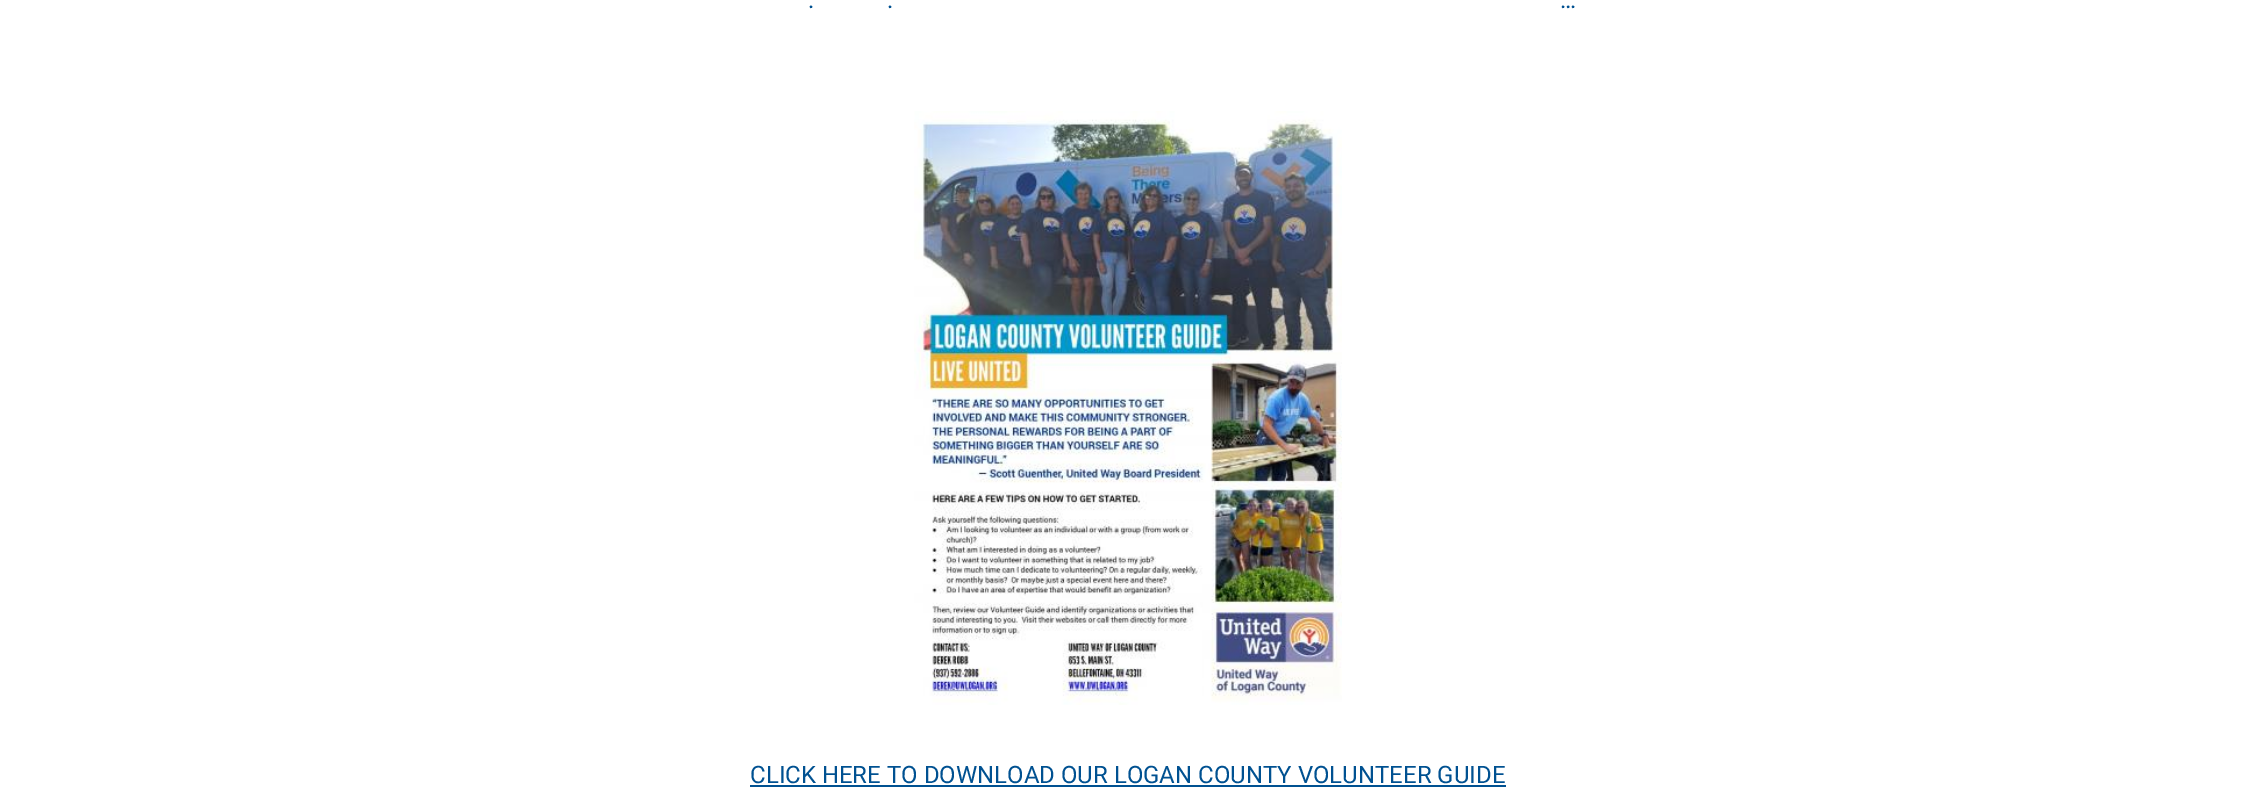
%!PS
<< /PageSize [2256 796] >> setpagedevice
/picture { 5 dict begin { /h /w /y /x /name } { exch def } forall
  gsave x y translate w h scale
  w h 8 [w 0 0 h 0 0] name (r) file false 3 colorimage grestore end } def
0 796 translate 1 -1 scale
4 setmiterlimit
1 setgray
0 0 2256 796 rectfill
/Roboto-Regular [24 0 0 -24 0 0] selectfont
0 0.318 0.569 setrgbcolor
808 8 moveto (.) show
887 8 moveto (.) show
1560 8 moveto (…) show
(img1.rgb) 914 111 428 594 picture
750 783 moveto (CLICK HERE TO DOWNLOAD OUR LOGAN COUNTY VOLUNTEER GUIDE) show
750 785 756 2 rectfill
showpage
